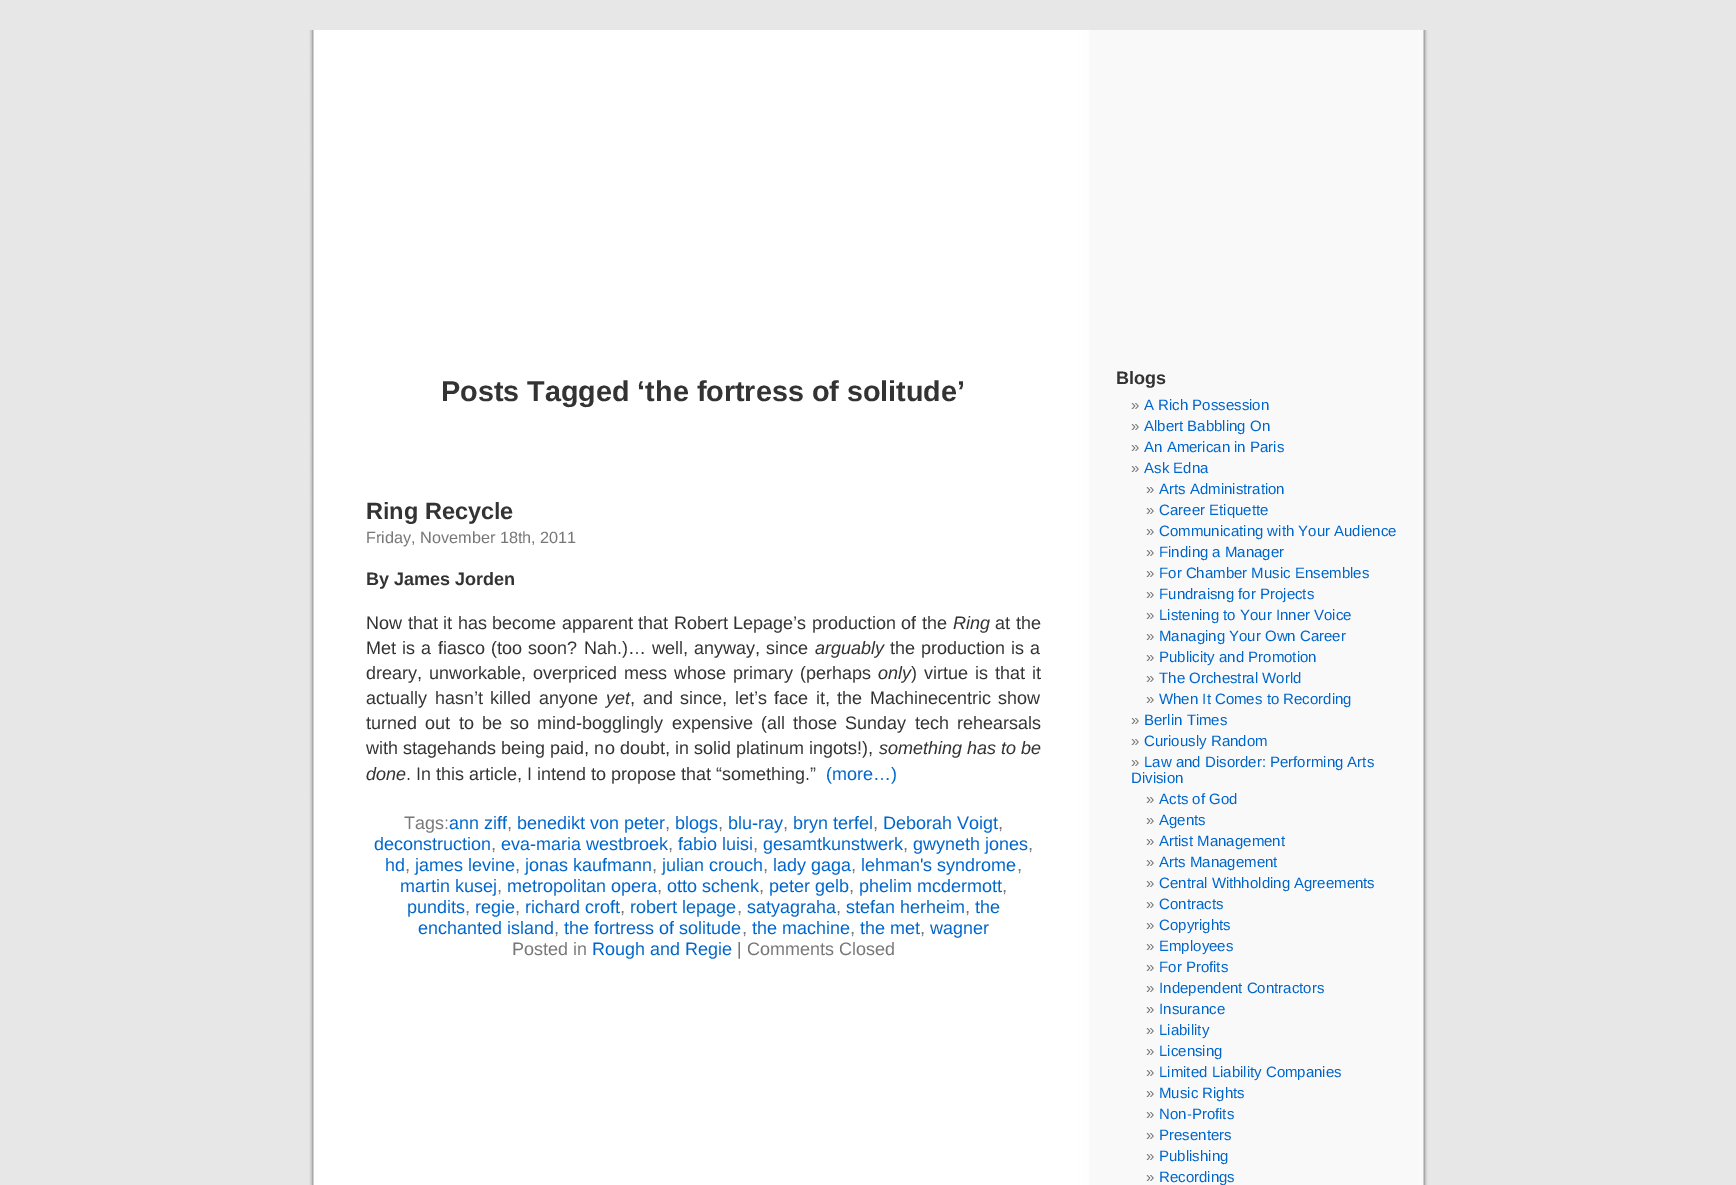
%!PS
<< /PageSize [1736 1185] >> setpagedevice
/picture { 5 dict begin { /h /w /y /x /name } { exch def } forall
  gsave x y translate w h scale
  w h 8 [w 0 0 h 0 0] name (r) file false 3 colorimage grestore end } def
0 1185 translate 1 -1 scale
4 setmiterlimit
0.906 setgray
0 0 1736 1185 rectfill
(img1.rgb) 309 30 1119 1155 picture
/LiberationSans-Bold [28.75 0 0 -28.75 0 0] selectfont
0.2 setgray
441 401 moveto (Posts Tagged ‘the fortress of solitude’) show
/LiberationSans-Bold [23.5 0 0 -23.5 0 0] selectfont
366 519 moveto (Ring Recycle) show
/LiberationSans-Regular [16.25 0 0 -16.25 0 0] selectfont
0.467 setgray
366 543 moveto (Friday, November 18th, 2011) show
/LiberationSans-Bold [18 0 0 -18 0 0] selectfont
0.2 setgray
366 585 moveto (By James Jorden) show
/LiberationSans-Regular [18 0 0 -18 0 0] selectfont
366 629 moveto 0.5 0 32 (Now that it has become apparent that Robert Lepage’s production of the) widthshow
/LiberationSans-Italic [18 0 0 -18 0 0] selectfont
953 629 moveto (Ring) show
/LiberationSans-Regular [18 0 0 -18 0 0] selectfont
995 629 moveto 1 0 32 (at the) widthshow
366 654 moveto 1.25 0 32 (Met is a fiasco \(too soon? Nah.\)… well, anyway, since) widthshow
/LiberationSans-Italic [18 0 0 -18 0 0] selectfont
815 654 moveto (arguably) show
/LiberationSans-Regular [18 0 0 -18 0 0] selectfont
890 654 moveto 1 0 32 (the production is a) widthshow
366 679 moveto 2 0 32 (dreary, unworkable, overpriced mess whose primary \(perhaps) widthshow
/LiberationSans-Italic [18 0 0 -18 0 0] selectfont
878 679 moveto (only) show
/LiberationSans-Regular [18 0 0 -18 0 0] selectfont
911 679 moveto 2 0 32 (\) virtue is that it) widthshow
366 704 moveto 2.5 0 32 (actually hasn’t killed anyone) widthshow
/LiberationSans-Italic [18 0 0 -18 0 0] selectfont
606 704 moveto (yet) show
/LiberationSans-Regular [18 0 0 -18 0 0] selectfont
630 704 moveto 2.5 0 32 (, and since, let’s face it, the Machinecentric show) widthshow
366 729 moveto 3.25 0 32 (turned out to be so mind-bogglingly expensive \(all those Sunday tech rehearsals) widthshow
366 754 moveto 0.1 0 32 (with stagehands being paid, no doubt, in solid platinum ingots!\),) widthshow
/LiberationSans-Italic [18 0 0 -18 0 0] selectfont
879 754 moveto (something has to be) show
366 780 moveto (done) show
/LiberationSans-Regular [18 0 0 -18 0 0] selectfont
406 780 moveto (. In this article, I intend to propose that “something.”) show
0 0.4 0.8 setrgbcolor
826 780 moveto (\(more…\)) show
0.467 setgray
404 829 moveto (Tags:) show
0 0.4 0.8 setrgbcolor
449 829 moveto (ann ziff) show
0.467 setgray
507 829 moveto (,) show
0 0.4 0.8 setrgbcolor
517 829 moveto (benedikt von peter) show
0.467 setgray
665 829 moveto (,) show
0 0.4 0.8 setrgbcolor
675 829 moveto (blogs) show
0.467 setgray
718 829 moveto (,) show
0 0.4 0.8 setrgbcolor
728 829 moveto (blu-ray) show
0.467 setgray
783 829 moveto (,) show
0 0.4 0.8 setrgbcolor
793 829 moveto (bryn terfel) show
0.467 setgray
873 829 moveto (,) show
0 0.4 0.8 setrgbcolor
883 829 moveto (Deborah Voigt) show
0.467 setgray
998 829 moveto (,) show
0 0.4 0.8 setrgbcolor
374 850 moveto (deconstruction) show
0.467 setgray
491 850 moveto (,) show
0 0.4 0.8 setrgbcolor
501 850 moveto (eva-maria westbroek) show
0.467 setgray
668 850 moveto (,) show
0 0.4 0.8 setrgbcolor
678 850 moveto (fabio luisi) show
0.467 setgray
753 850 moveto (,) show
0 0.4 0.8 setrgbcolor
763 850 moveto (gesamtkunstwerk) show
0.467 setgray
903 850 moveto (,) show
0 0.4 0.8 setrgbcolor
913 850 moveto (gwyneth jones) show
0.467 setgray
1028 850 moveto (,) show
0 0.4 0.8 setrgbcolor
385 871 moveto (hd) show
0.467 setgray
405 871 moveto (,) show
0 0.4 0.8 setrgbcolor
415 871 moveto (james levine) show
0.467 setgray
515 871 moveto (,) show
0 0.4 0.8 setrgbcolor
525 871 moveto (jonas kaufmann) show
0.467 setgray
652 871 moveto (,) show
0 0.4 0.8 setrgbcolor
662 871 moveto (julian crouch) show
0.467 setgray
763 871 moveto (,) show
0 0.4 0.8 setrgbcolor
773 871 moveto (lady gaga) show
0.467 setgray
851 871 moveto (,) show
0 0.4 0.8 setrgbcolor
861 871 moveto (lehman's syndrome) show
0.467 setgray
1017 871 moveto (,) show
0 0.4 0.8 setrgbcolor
400 892 moveto (martin kusej) show
0.467 setgray
497 892 moveto (,) show
0 0.4 0.8 setrgbcolor
507 892 moveto (metropolitan opera) show
0.467 setgray
657 892 moveto (,) show
0 0.4 0.8 setrgbcolor
667 892 moveto (otto schenk) show
0.467 setgray
759 892 moveto (,) show
0 0.4 0.8 setrgbcolor
769 892 moveto (peter gelb) show
0.467 setgray
849 892 moveto (,) show
0 0.4 0.8 setrgbcolor
859 892 moveto (phelim mcdermott) show
0.467 setgray
1002 892 moveto (,) show
0 0.4 0.8 setrgbcolor
407 913 moveto (pundits) show
0.467 setgray
465 913 moveto (,) show
0 0.4 0.8 setrgbcolor
475 913 moveto (regie) show
0.467 setgray
515 913 moveto (,) show
0 0.4 0.8 setrgbcolor
525 913 moveto (richard croft) show
0.467 setgray
620 913 moveto (,) show
0 0.4 0.8 setrgbcolor
630 913 moveto (robert lepage) show
0.467 setgray
737 913 moveto (,) show
0 0.4 0.8 setrgbcolor
747 913 moveto (satyagraha) show
0.467 setgray
836 913 moveto (,) show
0 0.4 0.8 setrgbcolor
846 913 moveto (stefan herheim) show
0.467 setgray
965 913 moveto (,) show
0 0.4 0.8 setrgbcolor
975 913 moveto (the) show
418 934 moveto (enchanted island) show
0.467 setgray
554 934 moveto (,) show
0 0.4 0.8 setrgbcolor
564 934 moveto (the fortress of solitude) show
0.467 setgray
742 934 moveto (,) show
0 0.4 0.8 setrgbcolor
752 934 moveto (the machine) show
0.467 setgray
850 934 moveto (,) show
0 0.4 0.8 setrgbcolor
860 934 moveto (the met) show
0.467 setgray
920 934 moveto (,) show
0 0.4 0.8 setrgbcolor
930 934 moveto (wagner) show
0.467 setgray
512 955 moveto (Posted in) show
0 0.4 0.8 setrgbcolor
592 955 moveto (Rough and Regie) show
0.467 setgray
737 955 moveto (| Comments Closed) show
/LiberationSans-Bold [18 0 0 -18 0 0] selectfont
0.2 setgray
1116 384 moveto (Blogs) show
/LiberationSans-Regular [15 0 0 -15 0 0] selectfont
0.467 setgray
1131 410 moveto (») show
0 0.4 0.8 setrgbcolor
1144 410 moveto (A Rich Possession) show
0.467 setgray
1131 431 moveto (») show
0 0.4 0.8 setrgbcolor
1144 431 moveto (Albert Babbling On) show
0.467 setgray
1131 452 moveto (») show
0 0.4 0.8 setrgbcolor
1144 452 moveto (An American in Paris) show
0.467 setgray
1131 473 moveto (») show
0 0.4 0.8 setrgbcolor
1144 473 moveto (Ask Edna) show
0.467 setgray
1146 494 moveto (») show
0 0.4 0.8 setrgbcolor
1159 494 moveto (Arts Administration) show
0.467 setgray
1146 515 moveto (») show
0 0.4 0.8 setrgbcolor
1159 515 moveto (Career Etiquette) show
0.467 setgray
1146 536 moveto (») show
0 0.4 0.8 setrgbcolor
1159 536 moveto (Communicating with Your Audience) show
0.467 setgray
1146 557 moveto (») show
0 0.4 0.8 setrgbcolor
1159 557 moveto (Finding a Manager) show
0.467 setgray
1146 578 moveto (») show
0 0.4 0.8 setrgbcolor
1159 578 moveto (For Chamber Music Ensembles) show
0.467 setgray
1146 599 moveto (») show
0 0.4 0.8 setrgbcolor
1159 599 moveto (Fundraisng for Projects) show
0.467 setgray
1146 620 moveto (») show
0 0.4 0.8 setrgbcolor
1159 620 moveto (Listening to Your Inner Voice) show
0.467 setgray
1146 641 moveto (») show
0 0.4 0.8 setrgbcolor
1159 641 moveto (Managing Your Own Career) show
0.467 setgray
1146 662 moveto (») show
0 0.4 0.8 setrgbcolor
1159 662 moveto (Publicity and Promotion) show
0.467 setgray
1146 683 moveto (») show
0 0.4 0.8 setrgbcolor
1159 683 moveto (The Orchestral World) show
0.467 setgray
1146 704 moveto (») show
0 0.4 0.8 setrgbcolor
1159 704 moveto (When It Comes to Recording) show
0.467 setgray
1131 725 moveto (») show
0 0.4 0.8 setrgbcolor
1144 725 moveto (Berlin Times) show
0.467 setgray
1131 746 moveto (») show
0 0.4 0.8 setrgbcolor
1144 746 moveto (Curiously Random) show
0.467 setgray
1131 767 moveto (») show
0 0.4 0.8 setrgbcolor
1144 767 moveto (Law and Disorder: Performing Arts) show
1131 783 moveto (Division) show
0.467 setgray
1146 804 moveto (») show
0 0.4 0.8 setrgbcolor
1159 804 moveto (Acts of God) show
0.467 setgray
1146 825 moveto (») show
0 0.4 0.8 setrgbcolor
1159 825 moveto (Agents) show
0.467 setgray
1146 846 moveto (») show
0 0.4 0.8 setrgbcolor
1159 846 moveto (Artist Management) show
0.467 setgray
1146 867 moveto (») show
0 0.4 0.8 setrgbcolor
1159 867 moveto (Arts Management) show
0.467 setgray
1146 888 moveto (») show
0 0.4 0.8 setrgbcolor
1159 888 moveto (Central Withholding Agreements) show
0.467 setgray
1146 909 moveto (») show
0 0.4 0.8 setrgbcolor
1159 909 moveto (Contracts) show
0.467 setgray
1146 930 moveto (») show
0 0.4 0.8 setrgbcolor
1159 930 moveto (Copyrights) show
0.467 setgray
1146 951 moveto (») show
0 0.4 0.8 setrgbcolor
1159 951 moveto (Employees) show
0.467 setgray
1146 972 moveto (») show
0 0.4 0.8 setrgbcolor
1159 972 moveto (For Profits) show
0.467 setgray
1146 993 moveto (») show
0 0.4 0.8 setrgbcolor
1159 993 moveto (Independent Contractors) show
0.467 setgray
1146 1014 moveto (») show
0 0.4 0.8 setrgbcolor
1159 1014 moveto (Insurance) show
0.467 setgray
1146 1035 moveto (») show
0 0.4 0.8 setrgbcolor
1159 1035 moveto (Liability) show
0.467 setgray
1146 1056 moveto (») show
0 0.4 0.8 setrgbcolor
1159 1056 moveto (Licensing) show
0.467 setgray
1146 1077 moveto (») show
0 0.4 0.8 setrgbcolor
1159 1077 moveto (Limited Liability Companies) show
0.467 setgray
1146 1098 moveto (») show
0 0.4 0.8 setrgbcolor
1159 1098 moveto (Music Rights) show
0.467 setgray
1146 1119 moveto (») show
0 0.4 0.8 setrgbcolor
1159 1119 moveto (Non-Profits) show
0.467 setgray
1146 1140 moveto (») show
0 0.4 0.8 setrgbcolor
1159 1140 moveto (Presenters) show
0.467 setgray
1146 1161 moveto (») show
0 0.4 0.8 setrgbcolor
1159 1161 moveto (Publishing) show
0.467 setgray
1146 1182 moveto (») show
0 0.4 0.8 setrgbcolor
1159 1182 moveto (Recordings) show
showpage
